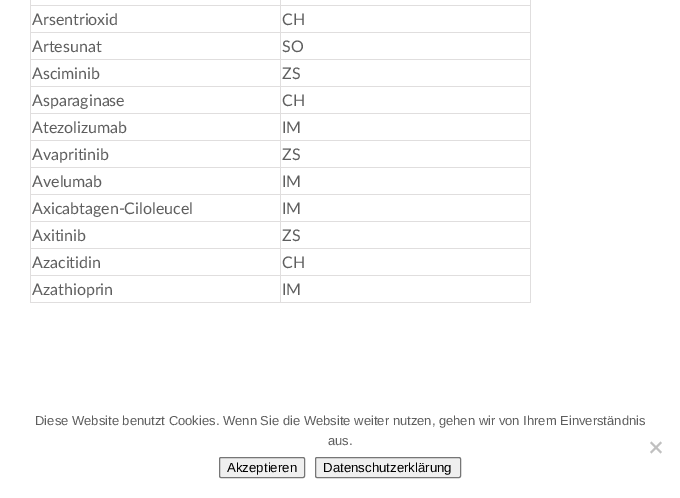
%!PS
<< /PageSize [680 498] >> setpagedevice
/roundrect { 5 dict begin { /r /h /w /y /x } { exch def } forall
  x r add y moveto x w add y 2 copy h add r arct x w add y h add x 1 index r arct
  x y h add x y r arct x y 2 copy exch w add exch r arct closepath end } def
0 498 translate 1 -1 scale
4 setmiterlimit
1 setgray
0 0 680 498 rectfill
0.878 0.871 0.871 setrgbcolor
280 5 251 1 rectfill
280 32 251 1 rectfill
280 59 251 1 rectfill
280 86 251 1 rectfill
280 113 251 1 rectfill
280 140 251 1 rectfill
280 167 251 1 rectfill
280 194 251 1 rectfill
280 221 251 1 rectfill
280 248 251 1 rectfill
280 275 251 1 rectfill
530 275 1 28 rectfill
280 302 251 1 rectfill
280 275 1 28 rectfill
30 275 251 1 rectfill
280 248 1 28 rectfill
30 248 251 1 rectfill
280 221 1 28 rectfill
30 221 251 1 rectfill
280 194 1 28 rectfill
30 194 251 1 rectfill
280 167 1 28 rectfill
30 167 251 1 rectfill
280 140 1 28 rectfill
30 140 251 1 rectfill
280 113 1 28 rectfill
30 113 251 1 rectfill
280 86 1 28 rectfill
30 86 251 1 rectfill
280 59 1 28 rectfill
30 59 251 1 rectfill
280 32 1 28 rectfill
30 32 251 1 rectfill
280 5 1 28 rectfill
30 5 251 1 rectfill
280 0 1 6 rectfill
30 302 251 1 rectfill
30 275 1 28 rectfill
30 248 1 28 rectfill
30 221 1 28 rectfill
30 194 1 28 rectfill
30 167 1 28 rectfill
30 140 1 28 rectfill
30 113 1 28 rectfill
30 86 1 28 rectfill
30 59 1 28 rectfill
30 32 1 28 rectfill
30 0 1 33 rectfill
/Lato-Regular [16 0 0 -16 0 0] selectfont
0.369 setgray
32 25 moveto (Arsentrioxid) show
0.878 0.871 0.871 setrgbcolor
530 248 1 28 rectfill
530 221 1 28 rectfill
530 194 1 28 rectfill
530 167 1 28 rectfill
530 140 1 28 rectfill
530 113 1 28 rectfill
530 86 1 28 rectfill
530 59 1 28 rectfill
530 32 1 28 rectfill
530 0 1 33 rectfill
0.369 setgray
282 25 moveto (CH) show
32 52 moveto (Artesunat) show
282 52 moveto (SO) show
32 79 moveto (Asciminib) show
282 79 moveto (ZS) show
32 106 moveto (Asparaginase) show
282 106 moveto (CH) show
32 133 moveto (Atezolizumab) show
282 133 moveto (IM) show
32 160 moveto (Avapritinib) show
282 160 moveto (ZS) show
32 187 moveto (Avelumab) show
282 187 moveto (IM) show
32 214 moveto (Axicabtagen-Ciloleucel) show
282 214 moveto (IM) show
32 241 moveto (Axitinib) show
282 241 moveto (ZS) show
32 268 moveto (Azacitidin) show
282 268 moveto (CH) show
32 295 moveto (Azathioprin) show
282 295 moveto (IM) show
/LiberationSans-Regular [13 0 0 -13 0 0] selectfont
35 425 moveto (Diese Website benutzt Cookies. Wenn Sie die Website weiter nutzen, gehen wir von Ihrem Einverständnis) show
328 445 moveto (aus.) show
0.753 setgray
newpath 660.5 441.5 moveto 662 443 lineto 651.5 453.5 lineto 650 452 lineto closepath fill
newpath 650 443 moveto 651.5 441.5 lineto 662 452 lineto 660.5 453.5 lineto closepath fill
0.937 setgray
219.5 457.5 85 20 1.5 roundrect gsave fill grestore
0.463 setgray
stroke
/LiberationSans-Regular [13.25 0 0 -13.25 0 0] selectfont
0 setgray
227 472 moveto (Akzeptieren) show
0.937 setgray
315.5 457.5 145 20 1.5 roundrect gsave fill grestore
0.463 setgray
stroke
0 setgray
323 472 moveto (Datenschutzerklärung) show
showpage
